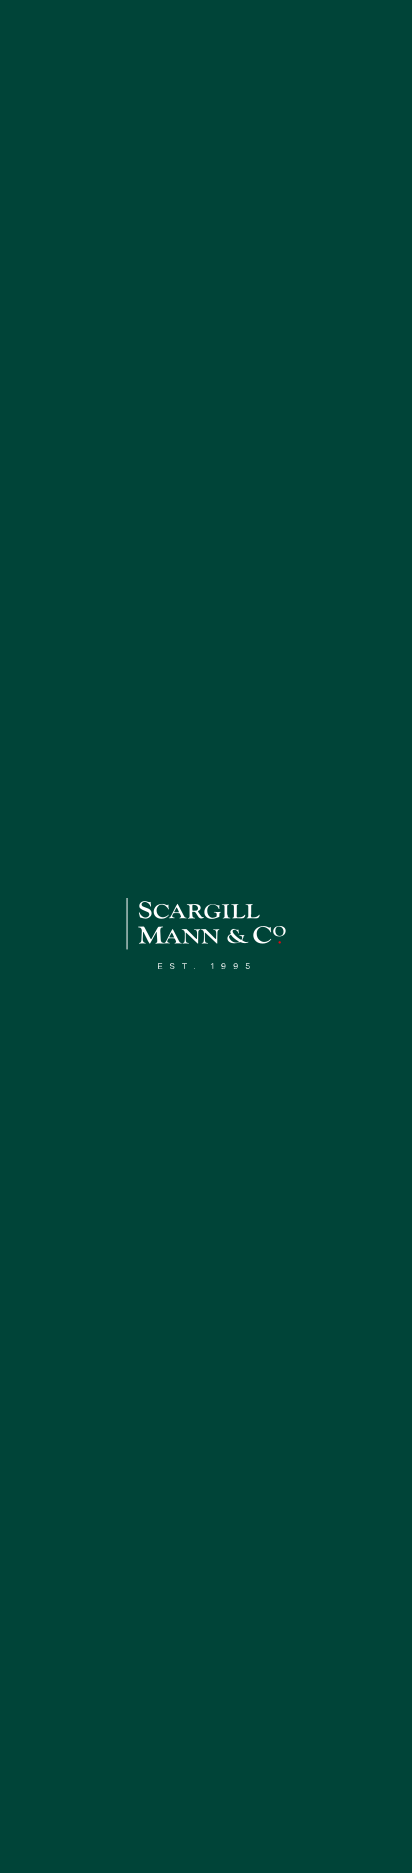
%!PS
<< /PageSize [412 1873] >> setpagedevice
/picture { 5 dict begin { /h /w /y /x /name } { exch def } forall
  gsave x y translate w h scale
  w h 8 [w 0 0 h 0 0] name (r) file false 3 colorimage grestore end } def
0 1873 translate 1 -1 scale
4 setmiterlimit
0 0.267 0.22 setrgbcolor
0 0 412 1873 rectfill
(img1.rgb) 126 898 160 71 picture
showpage
